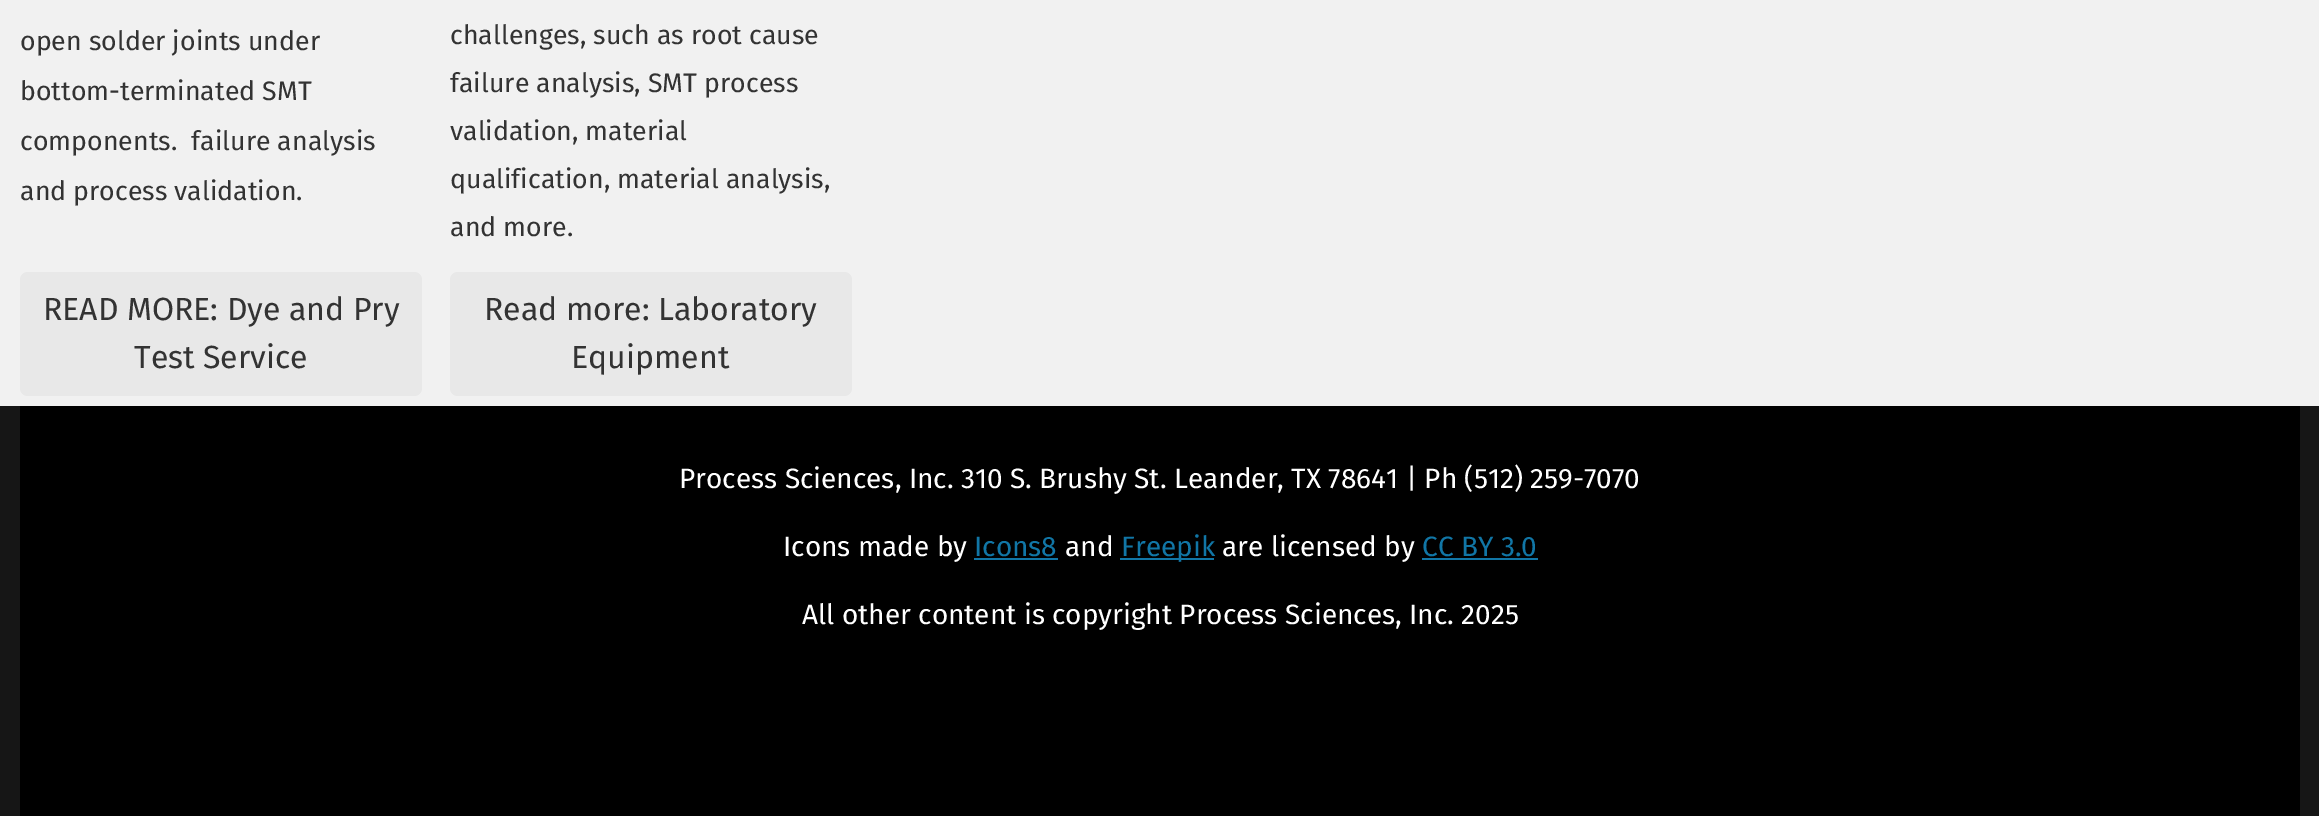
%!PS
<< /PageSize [2319 816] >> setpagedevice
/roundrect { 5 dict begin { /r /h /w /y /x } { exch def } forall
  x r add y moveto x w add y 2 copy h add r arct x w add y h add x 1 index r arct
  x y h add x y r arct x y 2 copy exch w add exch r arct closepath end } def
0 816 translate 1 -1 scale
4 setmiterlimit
0.945 setgray
0 0 2319 816 rectfill
/FiraSans-Regular [26.7 0 0 -26.7 0 0] selectfont
0.2 setgray
20 50 moveto (open solder joints under) show
20 100 moveto (bottom-terminated SMT) show
20 150 moveto (components.  failure analysis) show
20 200 moveto (and process validation.) show
0.91 setgray
20 272 402 124 8 roundrect fill
/FiraSans-Regular [32 0 0 -32 0 0] selectfont
0.2 setgray
43 320 moveto (READ MORE: Dye and Pry) show
134 368 moveto (Test Service) show
/FiraSans-Regular [26.7 0 0 -26.7 0 0] selectfont
450 44 moveto (challenges, such as root cause) show
450 92 moveto (failure analysis, SMT process) show
450 140 moveto (validation, material) show
450 188 moveto (qualification, material analysis,) show
450 236 moveto (and more.) show
0.91 setgray
450 272 402 124 8 roundrect fill
/FiraSans-Regular [32 0 0 -32 0 0] selectfont
0.2 setgray
484 320 moveto (Read more: Laboratory) show
571 368 moveto (Equipment) show
0.086 setgray
0 406 2319 410 rectfill
0 setgray
20 406 2280 410 rectfill
/FiraSans-Regular [28 0 0 -28 0 0] selectfont
1 setgray
679 488 moveto (Process Sciences, Inc. 310 S. Brushy St. Leander, TX 78641 | Ph \(512\) 259-7070) show
783 556 moveto (Icons made by) show
0.067 0.463 0.651 setrgbcolor
974 556 moveto (Icons8) show
974 558 84 2 rectfill
1 setgray
1065 556 moveto (and) show
0.067 0.463 0.651 setrgbcolor
1120 558 94 2 rectfill
1121 556 moveto (Freepik) show
1 setgray
1222 556 moveto (are licensed by) show
0.067 0.463 0.651 setrgbcolor
1422 556 moveto (CC BY 3.0) show
1422 558 116 2 rectfill
1 setgray
802 624 moveto (All other content is copyright Process Sciences, Inc. 2025) show
showpage
